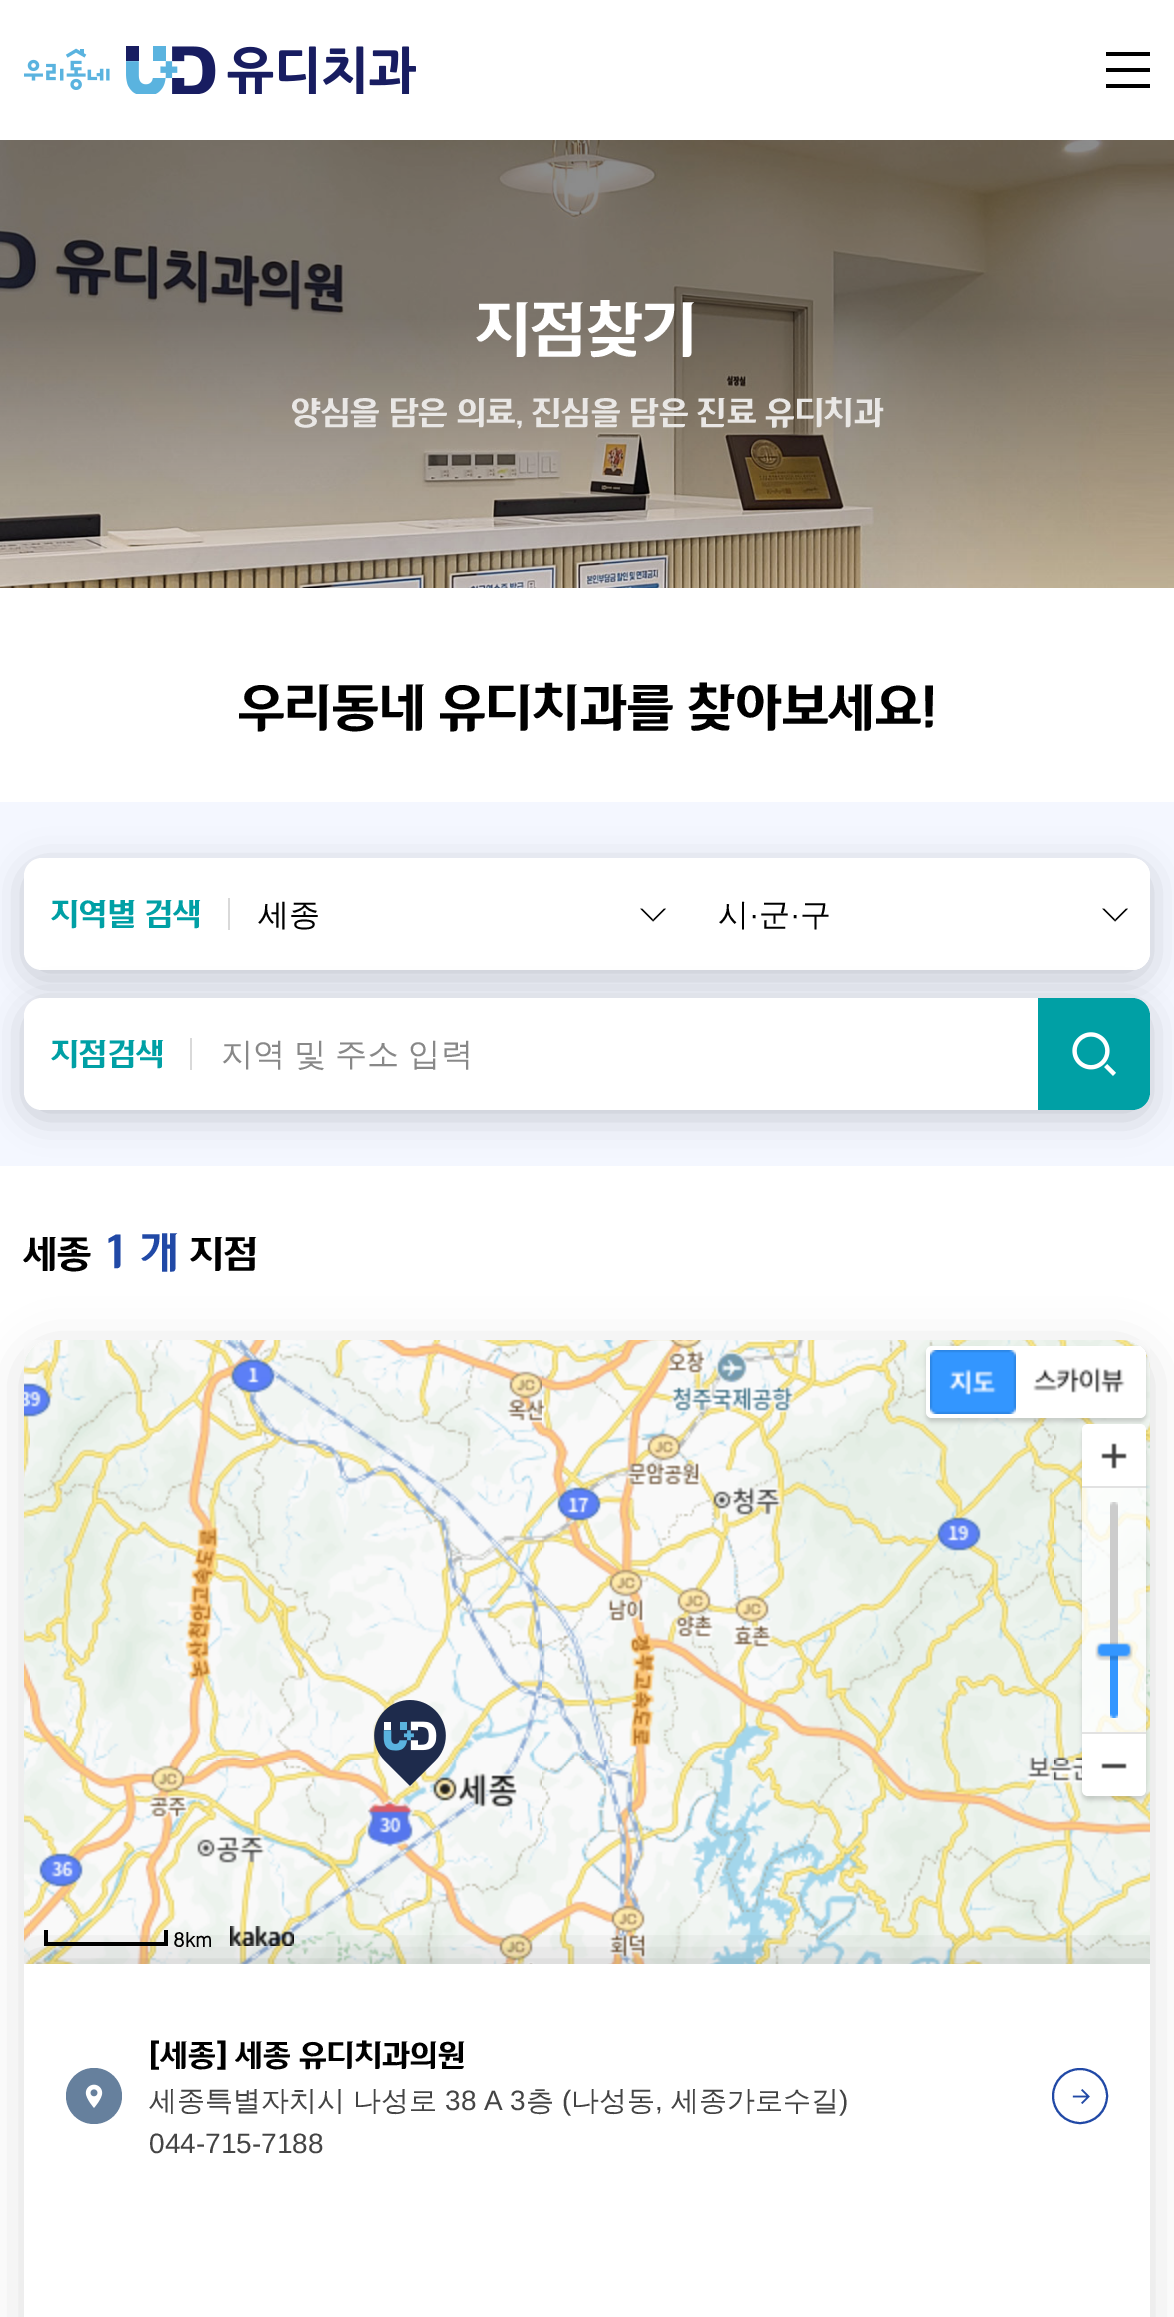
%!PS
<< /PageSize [1174 2317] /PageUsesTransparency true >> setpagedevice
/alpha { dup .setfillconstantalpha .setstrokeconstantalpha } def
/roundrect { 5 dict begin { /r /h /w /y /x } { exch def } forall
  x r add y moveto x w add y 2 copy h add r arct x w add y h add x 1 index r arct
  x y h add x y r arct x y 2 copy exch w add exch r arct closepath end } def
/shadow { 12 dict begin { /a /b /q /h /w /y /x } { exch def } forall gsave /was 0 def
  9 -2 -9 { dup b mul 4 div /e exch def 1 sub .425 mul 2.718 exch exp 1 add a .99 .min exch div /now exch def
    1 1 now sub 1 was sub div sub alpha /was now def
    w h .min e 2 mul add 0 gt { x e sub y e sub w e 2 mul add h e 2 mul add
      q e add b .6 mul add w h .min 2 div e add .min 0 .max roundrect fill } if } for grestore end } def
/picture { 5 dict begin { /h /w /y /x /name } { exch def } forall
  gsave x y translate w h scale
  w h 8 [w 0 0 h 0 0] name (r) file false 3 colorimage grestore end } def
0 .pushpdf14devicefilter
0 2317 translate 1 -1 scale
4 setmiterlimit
1 setgray
0 0 1174 2317 rectfill
(img1.rgb) 24 46 392 48 picture
0 setgray
1106 52 44 4 rectfill
1106 68 44 4 rectfill
1106 84 44 4 rectfill
(img2.rgb) 0 140 1174 448 picture
/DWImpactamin-Regular [63 0 0 -63 0 0] selectfont
1 setgray
476 349 moveto (지점찾기) show
/DWImpactamin-Regular [33.6 0 0 -33.6 0 0] selectfont
0.914 0.906 0.898 setrgbcolor
291 423 moveto (양심을 담은 의료, 진심을 담은 진료 유디치과) show
/DWImpactamin-Regular [53.25 0 0 -53.25 0 0] selectfont
0 setgray
238 724 moveto (우리동네 유디치과를 찾아보세요!) show
0.957 0.969 1 setrgbcolor
0 802 1174 364 rectfill
0 setgray
24 866 1126 112 18 17.5 0.18 shadow
1 setgray
24 858 1126 112 18 roundrect fill
/DWImpactamin-Regular [32.25 0 0 -32.25 0 0] selectfont
0 0.627 0.647 setrgbcolor
51 924 moveto (지역별 검색) show
0.851 setgray
228 898 2 32 rectfill
(img3.rgb) 640 908 26 14 picture
/WenQuanYiZenHei-Medium [31 0 0 -31 0 0] selectfont
0 setgray
258 925 moveto (세종) show
1 setgray
newpath 718 858 moveto 1132 858 lineto 1142 858 1150 866 1150 876 curveto 1150 952 lineto 1150 962 1142 970 1132 970 curveto 718 970 lineto closepath fill
(img3.rgb) 1102 908 26 14 picture
0 setgray
718 925 moveto (시) show
/LiberationSans-Regular [31 0 0 -31 0 0] selectfont
749 925 moveto (·) show
/WenQuanYiZenHei-Medium [31 0 0 -31 0 0] selectfont
759 925 moveto (군) show
/LiberationSans-Regular [31 0 0 -31 0 0] selectfont
790 925 moveto (·) show
/WenQuanYiZenHei-Medium [31 0 0 -31 0 0] selectfont
800 925 moveto (구) show
24 1006 1126 112 18 17.5 0.18 shadow
1 setgray
24 998 1126 112 18 roundrect fill
/DWImpactamin-Regular [32.25 0 0 -32.25 0 0] selectfont
0 0.627 0.647 setrgbcolor
51 1064 moveto (지점검색) show
0.851 setgray
190 1038 2 32 rectfill
/WenQuanYiZenHei-Medium [32.25 0 0 -32.25 0 0] selectfont
0.533 setgray
221 1065 moveto -1 0 32 (지역 및 주소 입력) widthshow
0 0.627 0.647 setrgbcolor
newpath 1038 998 moveto 1132 998 lineto 1142 998 1150 1006 1150 1016 curveto 1150 1092 lineto 1150 1102 1142 1110 1132 1110 curveto 1038 1110 lineto closepath fill
(img4.rgb) 1072 1032 44 44 picture
/DWImpactamin-Regular [39 0 0 -39 0 0] selectfont
0 setgray
23 1266 moveto (세종) show
/DWImpactamin-Regular [44 0 0 -44 0 0] selectfont
0.129 0.286 0.651 setrgbcolor
104 1266 moveto (1 개) show
/DWImpactamin-Regular [39 0 0 -39 0 0] selectfont
0 setgray
190 1266 moveto (지점) show
24 1348 1126 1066 28 23 0.13 shadow
1 setgray
24 1340 1126 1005 28 roundrect fill
(img5.rgb) 24 1340 1126 28 picture
(img6.rgb) 24 1352 6 408 picture
(img7.rgb) 30 1340 512 420 picture
(img8.rgb) 542 1340 512 420 picture
(img9.rgb) 1054 1340 96 420 picture
(img10.rgb) 24 1760 6 204 picture
(img11.rgb) 30 1760 512 204 picture
(img12.rgb) 542 1760 512 204 picture
(img13.rgb) 1054 1760 96 204 picture
(img14.rgb) 374 1700 72 86 picture
0 setgray
926 1350 220 72 6 2 0.15 shadow
gsave
24 1340 1126 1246 28 roundrect clip newpath
1 setgray
926 1346 220 72 6 roundrect fill
grestore
(img15.rgb) 930 1350 86 64 picture
(img16.rgb) 1033 1367 92 26 picture
gsave
newpath 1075 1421 moveto 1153 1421 lineto 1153 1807 lineto 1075 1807 lineto closepath 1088 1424 moveto 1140 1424 lineto 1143.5 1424 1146 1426.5 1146 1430 curveto 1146 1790 lineto 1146 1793.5 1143.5 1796 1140 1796 curveto 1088 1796 lineto 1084.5 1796 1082 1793.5 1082 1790 curveto 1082 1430 lineto 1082 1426.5 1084.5 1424 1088 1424 curveto closepath eoclip newpath
1082 1428 64 372 6 2 0.15 shadow
grestore
1 setgray
newpath 1088 1424 moveto 1140 1424 lineto 1143.5 1424 1146 1426.5 1146 1430 curveto 1146 1488 lineto 1082 1488 lineto 1082 1430 lineto 1082 1426.5 1084.5 1424 1088 1424 curveto closepath fill
(img17.rgb) 1101 1443 26 26 picture
0.886 setgray
1082 1486 64 2 rectfill
0.8 alpha
1 setgray
1082 1488 64 244 rectfill
1 alpha
0.2 0.588 1 setrgbcolor
1110 1655 8 59 rectfill
(img18.rgb) 1110 1502 8 4 picture
(img19.rgb) 1110 1714 8 4 picture
0.8 setgray
1110 1506 8 144 rectfill
(img20.rgb) 1095 1642 38 19 picture
1 setgray
newpath 1082 1732 moveto 1146 1732 lineto 1146 1790 lineto 1146 1793.5 1143.5 1796 1140 1796 curveto 1088 1796 lineto 1084.5 1796 1082 1793.5 1082 1790 curveto closepath fill
(img21.rgb) 1101 1763 26 6 picture
0.886 setgray
1082 1732 64 2 rectfill
0 setgray
164 1930 4 16 rectfill
44 1942 124 4 rectfill
44 1930 4 16 rectfill
/Dotum-Bold [20 0 0 -20 0 0] selectfont
173 1947 moveto (8km) show
(img22.rgb) 230 1926 64 20 picture
gsave
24 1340 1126 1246 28 roundrect clip newpath
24 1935 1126 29 rectclip
32 1964 1126 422 0 23 0.2 shadow
grestore
0.4 0.502 0.616 setrgbcolor
newpath 94 2096 28 0 360 arc closepath fill
(img23.rgb) 85 2084 18 24 picture
/DWImpactamin-Regular [31.5 0 0 -31.5 0 0] selectfont
0 setgray
149 2065 moveto ([세종] 세종 유디치과의원) show
/WenQuanYiZenHei-Medium [28 0 0 -28 0 0] selectfont
0.267 setgray
149 2110 moveto (세종특별자치시) show
353 2110 moveto (나성로) show
/LiberationSans-Regular [28 0 0 -28 0 0] selectfont
445 2110 moveto (38 A 3) show
/WenQuanYiZenHei-Medium [28 0 0 -28 0 0] selectfont
526 2110 moveto (층) show
/LiberationSans-Regular [28 0 0 -28 0 0] selectfont
562 2110 moveto (\() show
/WenQuanYiZenHei-Medium [28 0 0 -28 0 0] selectfont
571 2110 moveto (나성동) show
/LiberationSans-Regular [28 0 0 -28 0 0] selectfont
655 2110 moveto (,) show
/WenQuanYiZenHei-Medium [28 0 0 -28 0 0] selectfont
671 2110 moveto (세종가로수길) show
/LiberationSans-Regular [28 0 0 -28 0 0] selectfont
839 2110 moveto (\)) show
149 2153 moveto (044-715-7188) show
0.129 0.286 0.651 setrgbcolor
2 setlinewidth
newpath 1080 2096 27 0 360 arc closepath stroke
(img24.rgb) 1072 2089 18 15 picture
.poppdf14devicefilter showpage
